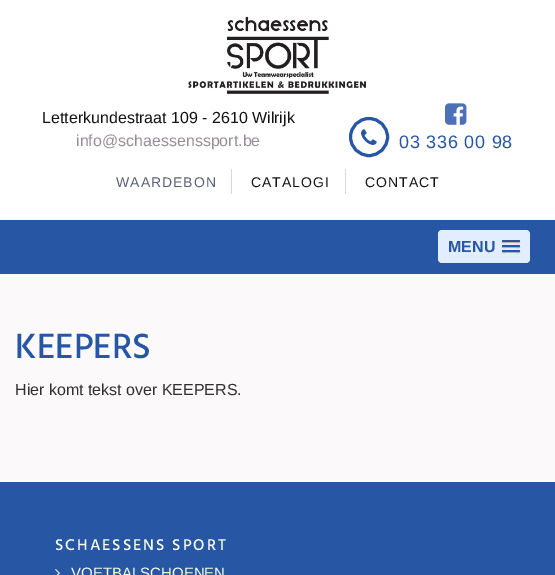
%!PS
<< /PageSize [555 575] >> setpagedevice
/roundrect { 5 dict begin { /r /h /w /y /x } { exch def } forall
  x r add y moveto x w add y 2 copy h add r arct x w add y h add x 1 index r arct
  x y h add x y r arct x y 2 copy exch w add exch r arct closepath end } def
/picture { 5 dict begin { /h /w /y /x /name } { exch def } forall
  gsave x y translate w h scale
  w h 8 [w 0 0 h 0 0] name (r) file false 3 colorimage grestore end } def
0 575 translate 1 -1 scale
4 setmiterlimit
1 setgray
0 0 555 575 rectfill
(img1.rgb) 188 16 179 78 picture
/LiberationSans-Regular [16 0 0 -16 0 0] selectfont
0.075 setgray
42 123 moveto (Letterkundestraat 109 - 2610 Wilrijk) show
0.604 0.549 0.596 setrgbcolor
76 146 moveto (info@schaessenssport.be) show
0.153 0.341 0.643 setrgbcolor
3 setlinewidth
newpath 369 137 18.5 0 360 arc closepath stroke
(img2.rgb) 361 129 16 16 picture
(img3.rgb) 445 103 22 22 picture
/LiberationSans-Regular [18 0 0 -18 0 0] selectfont
399 148 moveto 0.75 0 (03 336 00 98) ashow
0.847 setgray
231 169 1 25 rectfill
/LiberationSans-Regular [14 0 0 -14 0 0] selectfont
0.361 0.376 0.463 setrgbcolor
116 187 moveto 1 0 (WAARDEBON) ashow
0.847 setgray
345 169 1 25 rectfill
0.075 setgray
251 187 moveto 1 0 (CATALOGI) ashow
365 187 moveto 1 0 (CONTACT) ashow
0.153 0.341 0.643 setrgbcolor
0 220 555 54 rectfill
0.886 0.929 1 setrgbcolor
438 230 92 33 4 roundrect fill
/LiberationSans-Bold [16 0 0 -16 0 0] selectfont
0.153 0.341 0.643 setrgbcolor
448 252 moveto (MENU) show
0.667 0.698 0.749 setrgbcolor
newpath 502 241.5 moveto 501 243.5 505.5 243 505.5 243 curveto 516.5 243 lineto 516.5 243 521 243.5 520 241.5 curveto 519 242.5 512.5 242 511 242 curveto 509.5 242 503 242.5 502 241.5 curveto closepath fill
0.153 0.341 0.643 setrgbcolor
502 240 18 2 1 roundrect fill
0.667 0.698 0.749 setrgbcolor
newpath 502 246.5 moveto 501 248.5 505.5 248 505.5 248 curveto 516.5 248 lineto 516.5 248 521 248.5 520 246.5 curveto 519 247.5 512.5 247 511 247 curveto 509.5 247 503 247.5 502 246.5 curveto closepath fill
0.153 0.341 0.643 setrgbcolor
502 245 18 2 1 roundrect fill
0.667 0.698 0.749 setrgbcolor
newpath 502 251.5 moveto 501 253.5 505.5 253 505.5 253 curveto 516.5 253 lineto 516.5 253 521 253.5 520 251.5 curveto 519 252.5 512.5 252 511 252 curveto 509.5 252 503 252.5 502 251.5 curveto closepath fill
0.153 0.341 0.643 setrgbcolor
502 250 18 2 1 roundrect fill
0.984 0.976 0.976 setrgbcolor
0 274 555 208 rectfill
/HindVadodara-Medium [36 0 0 -36 0 0] selectfont
0.153 0.341 0.643 setrgbcolor
15 358 moveto (KEEPERS) show
/LiberationSans-Regular [16 0 0 -16 0 0] selectfont
0.188 0.188 0.184 setrgbcolor
15 395 moveto (Hier komt tekst over KEEPERS.) show
0.153 0.341 0.643 setrgbcolor
0 482 555 93 rectfill
/HindVadodara-Medium [16 0 0 -16 0 0] selectfont
0.976 1 0.918 setrgbcolor
55 550 moveto 2 0 (SCHAESSENS SPORT) ashow
(img4.rgb) 55 569 5 6 picture
/LiberationSans-Regular [15 0 0 -15 0 0] selectfont
71 578 moveto (VOETBALSCHOENEN) show
showpage
